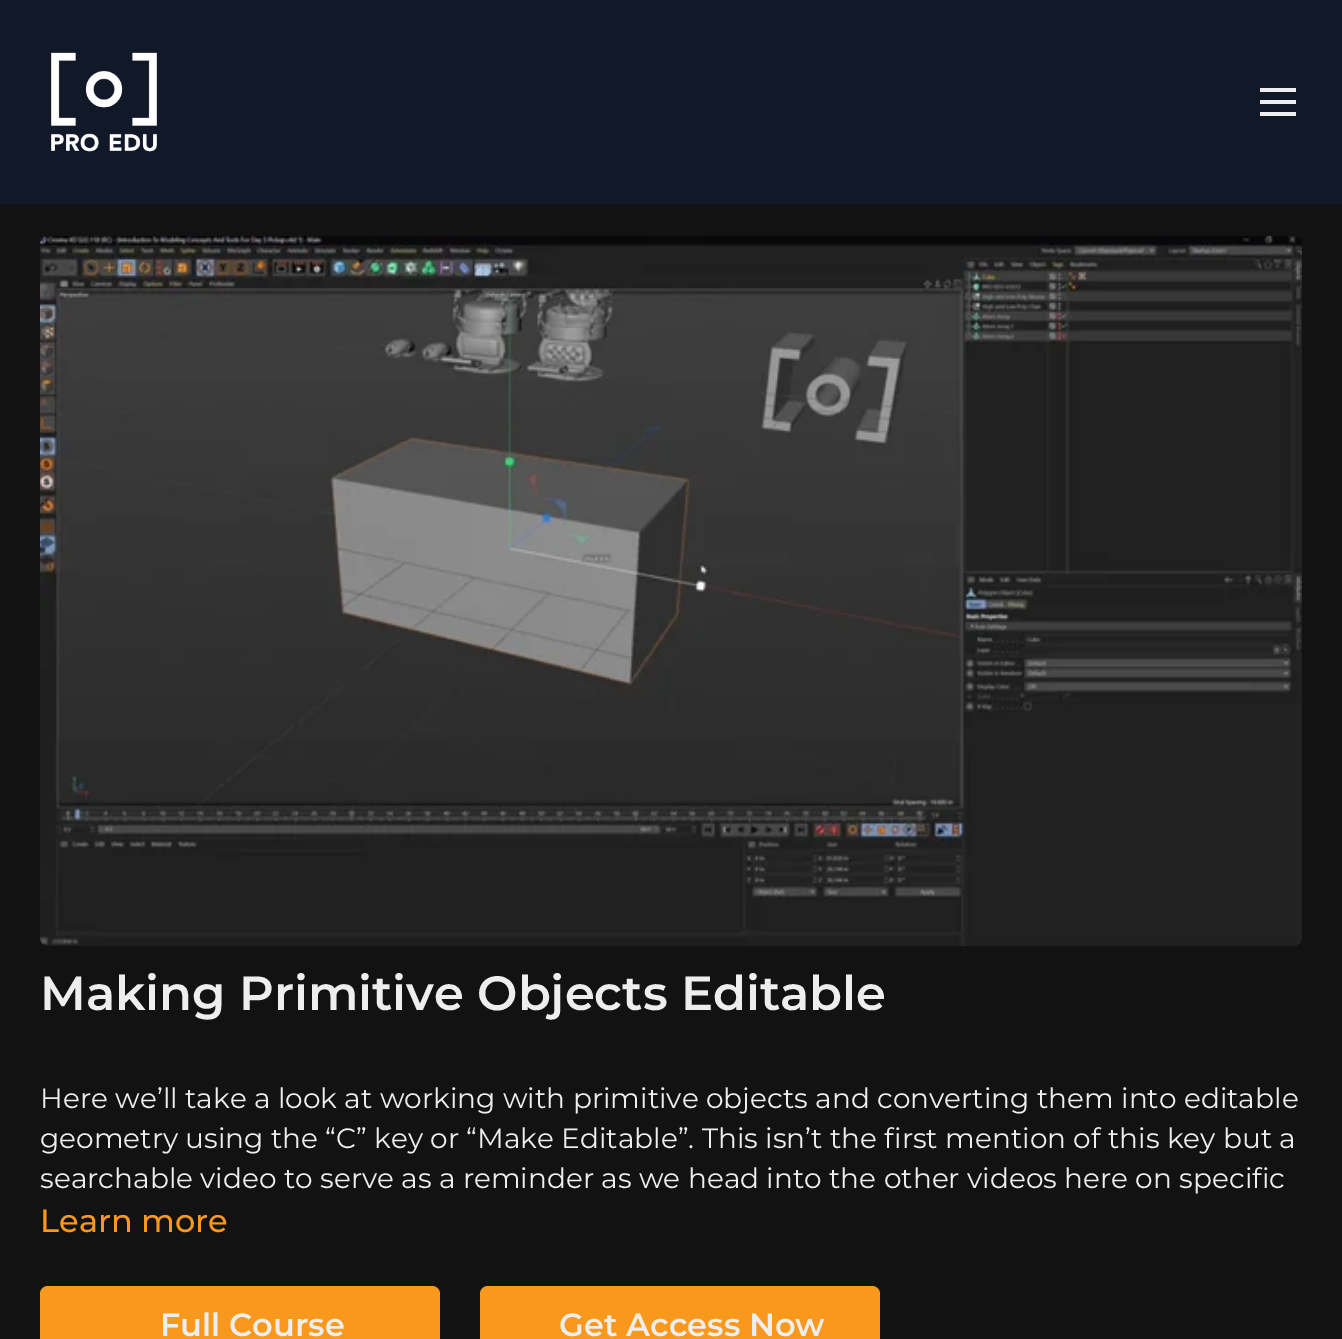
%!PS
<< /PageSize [1342 1339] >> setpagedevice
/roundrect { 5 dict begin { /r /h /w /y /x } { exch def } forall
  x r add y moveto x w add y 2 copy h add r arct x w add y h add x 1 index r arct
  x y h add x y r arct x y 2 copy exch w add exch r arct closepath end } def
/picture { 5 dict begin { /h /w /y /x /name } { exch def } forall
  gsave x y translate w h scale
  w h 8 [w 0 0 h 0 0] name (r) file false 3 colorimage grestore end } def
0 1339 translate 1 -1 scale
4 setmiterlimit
0.071 setgray
0 0 1342 1339 rectfill
0.067 0.094 0.153 setrgbcolor
0 0 1342 204 rectfill
(img1.rgb) 51 52 106 100 picture
0.933 setgray
1260 88 36 4 rectfill
1260 100 36 4 rectfill
1260 112 36 4 rectfill
(img2.rgb) 40 236 1262 710 picture
/Montserrat-SemiBold [48 0 0 -48 0 0] selectfont
40 1010 moveto (Making Primitive Objects Editable) show
/Montserrat-Regular [28 0 0 -28 0 0] selectfont
40 1108 moveto (Here we’ll take a look at working with primitive objects and converting them into editable) show
40 1148 moveto (geometry using the “C” key or “Make Editable”. This isn’t the first mention of this key but a) show
40 1188 moveto (searchable video to serve as a reminder as we head into the other videos here on specific) show
/Montserrat-Medium [32 0 0 -32 0 0] selectfont
0.973 0.596 0.114 setrgbcolor
40 1232 moveto (Learn more) show
40 1286 400 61 8 roundrect fill
/Montserrat-SemiBold [32 0 0 -32 0 0] selectfont
0.933 setgray
160 1336 moveto (Full Course) show
0.973 0.596 0.114 setrgbcolor
480 1286 400 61 8 roundrect fill
0.933 setgray
559 1336 moveto (Get Access Now) show
showpage
